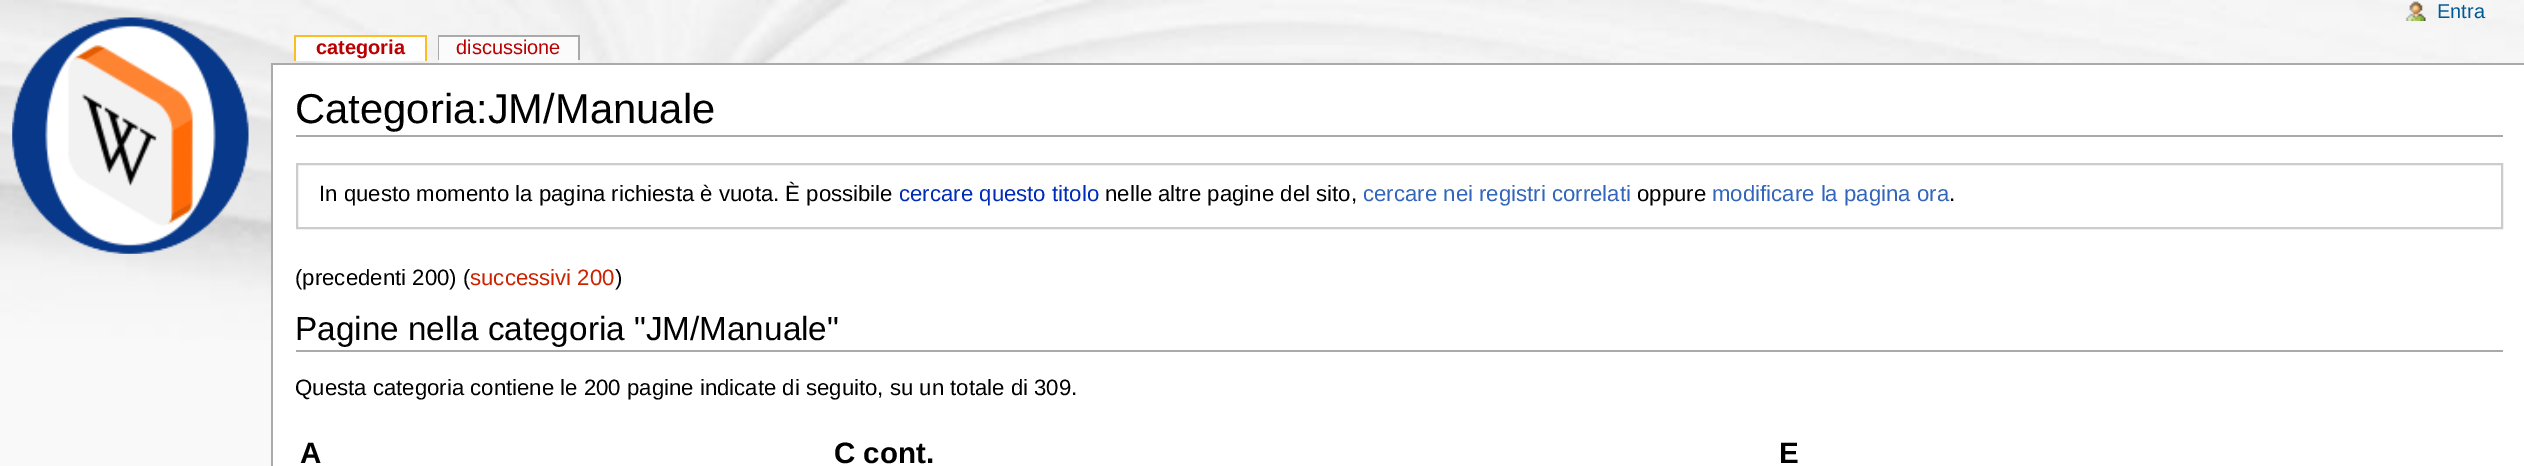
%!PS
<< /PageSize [2524 466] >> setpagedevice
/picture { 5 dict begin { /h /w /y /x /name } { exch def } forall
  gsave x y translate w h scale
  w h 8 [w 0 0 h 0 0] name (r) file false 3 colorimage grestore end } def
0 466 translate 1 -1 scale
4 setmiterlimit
0.976 setgray
0 0 2524 466 rectfill
(img1.rgb) 0 0 2524 340 picture
(img2.rgb) 2405 1 21 20 picture
/LiberationSans-Regular [20 0 0 -20 0 0] selectfont
0 0.345 0.588 setrgbcolor
2437 18 moveto (Entra) show
(img3.rgb) 12 17 237 237 picture
1 setgray
296 37 129 24 rectfill
/LiberationSans-Bold [20 0 0 -20 0 0] selectfont
0.729 0 0 setrgbcolor
316 54 moveto (categoria) show
0.98 0.741 0.137 setrgbcolor
294 35 133 2 rectfill
425 35 2 26 rectfill
294 35 2 26 rectfill
0.667 setgray
438 35 141 2 rectfill
438 35 2 25 rectfill
0.984 setgray
439 37 139 26 rectfill
/LiberationSans-Regular [20 0 0 -20 0 0] selectfont
0.729 0 0 setrgbcolor
456 54 moveto (discussione) show
0.667 setgray
578 35 2 25 rectfill
1 setgray
273 65 2251 401 rectfill
0.667 setgray
271 63 2253 2 rectfill
271 63 2 403 rectfill
296 135 2207 2 rectfill
/LiberationSans-Regular [41.75 0 0 -41.75 0 0] selectfont
0 setgray
295 123 moveto (Categoria:JM/Manuale) show
0.8 setgray
2 setlinewidth
297 164 2205 64 rectstroke
/LiberationSans-Regular [22.2 0 0 -22.2 0 0] selectfont
0 setgray
319 201 moveto (In questo momento la pagina richiesta è vuota. È possibile) show
0 0.169 0.722 setrgbcolor
899 201 moveto (cercare questo titolo) show
0 setgray
1105 201 moveto (nelle altre pagine del sito,) show
0.2 0.4 0.733 setrgbcolor
1363 201 moveto (cercare nei registri correlati) show
0 setgray
1637 201 moveto (oppure) show
0.2 0.4 0.733 setrgbcolor
1712 201 moveto (modificare la pagina ora) show
0 setgray
1949 201 moveto (.) show
295 285 moveto (\(precedenti 200\) \() show
0.8 0.133 0 setrgbcolor
470 285 moveto (successivi 200) show
0 setgray
615 285 moveto (\)) show
0.667 setgray
296 350 2207 2 rectfill
/LiberationSans-Regular [33.3 0 0 -33.3 0 0] selectfont
0 setgray
295 340 moveto (Pagine nella categoria "JM/Manuale") show
/LiberationSans-Regular [22.2 0 0 -22.2 0 0] selectfont
295 395 moveto (Questa categoria contiene le 200 pagine indicate di seguito, su un totale di 309.) show
/LiberationSans-Bold [29.5 0 0 -29.5 0 0] selectfont
300 463 moveto (A) show
834 463 moveto (C cont.) show
1779 463 moveto (E) show
showpage
